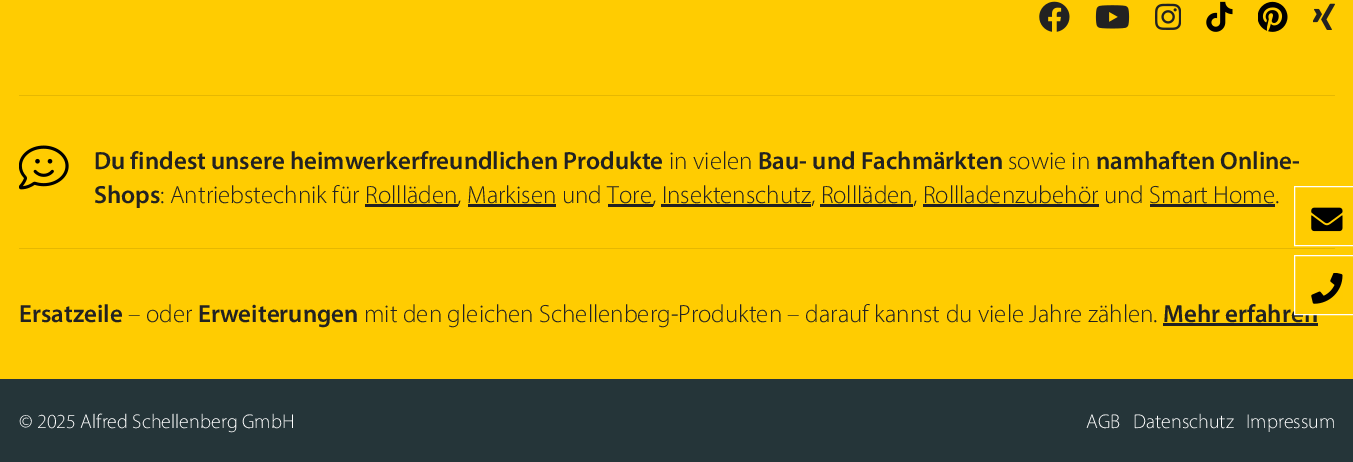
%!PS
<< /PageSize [1353 462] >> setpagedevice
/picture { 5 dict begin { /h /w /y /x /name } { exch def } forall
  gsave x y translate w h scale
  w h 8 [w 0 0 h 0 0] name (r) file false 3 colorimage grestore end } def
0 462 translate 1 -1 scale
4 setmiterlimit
1 0.8 0.004 setrgbcolor
0 0 1353 462 rectfill
(img1.rgb) 1039 1 31 31 picture
(img2.rgb) 1095 5 35 24 picture
(img3.rgb) 1155 3 26 27 picture
(img4.rgb) 1206 1 27 31 picture
(img5.rgb) 1258 1 30 31 picture
(img6.rgb) 1313 3 22 27 picture
0.902 0.722 0.004 setrgbcolor
19 95 1316 1 rectfill
(img7.rgb) 19 145 50 45 picture
/Myriad-SemiBold [25 0 0 -25 0 0] selectfont
0.133 setgray
94 169 moveto (Du findest unsere heimwerkerfreundlichen Produkte) show
/Myriad-Light [25 0 0 -25 0 0] selectfont
669 169 moveto (in vielen) show
/Myriad-SemiBold [25 0 0 -25 0 0] selectfont
758 169 moveto (Bau- und Fachmärkten) show
/Myriad-Light [25 0 0 -25 0 0] selectfont
1008 169 moveto (sowie in) show
/Myriad-SemiBold [25 0 0 -25 0 0] selectfont
1096 169 moveto (namhaften Online-) show
94 203 moveto (Shops) show
/Myriad-Light [25 0 0 -25 0 0] selectfont
160 203 moveto (: Antriebstechnik für Rollläden, Markisen und Tore) show
608 204 45 3 rectfill
652 203 moveto (, Insektenschutz, Rollläden, Rollladenzubehör und Smart Home.) show
365 204 93 3 rectfill
468 204 88 3 rectfill
661 204 150 3 rectfill
820 204 93 3 rectfill
923 204 176 3 rectfill
1150 204 125 3 rectfill
0.902 0.722 0.004 setrgbcolor
19 248 1316 1 rectfill
/Myriad-SemiBold [25 0 0 -25 0 0] selectfont
0.133 setgray
19 322 moveto (Ersatzeile) show
/Myriad-Light [25 0 0 -25 0 0] selectfont
128 322 moveto (– oder) show
/Myriad-SemiBold [25 0 0 -25 0 0] selectfont
198 322 moveto (Erweiterungen) show
/Myriad-Light [25 0 0 -25 0 0] selectfont
364 322 moveto (mit den gleichen Schellenberg-Produkten – darauf kannst du viele Jahre zählen.) show
/Myriad-SemiBold [25 0 0 -25 0 0] selectfont
1163 322 moveto (Mehr erfahren) show
1163 323 155 3 rectfill
0.145 0.208 0.224 setrgbcolor
0 379 1353 83 rectfill
/Myriad-Light [20 0 0 -20 0 0] selectfont
1 setgray
19 428 moveto (© 2025 Alfred Schellenberg GmbH) show
1086 428 moveto (AGB) show
1133 428 moveto (Datenschutz) show
1246 428 moveto (Impressum) show
1294.5 186.5 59 59 rectstroke
(img8.rgb) 1311 207 32 25 picture
1 0.8 0 setrgbcolor
1295 309 22 5 rectfill
1 setgray
1294.5 255.5 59 59 rectstroke
(img9.rgb) 1311 273 32 31 picture
showpage
